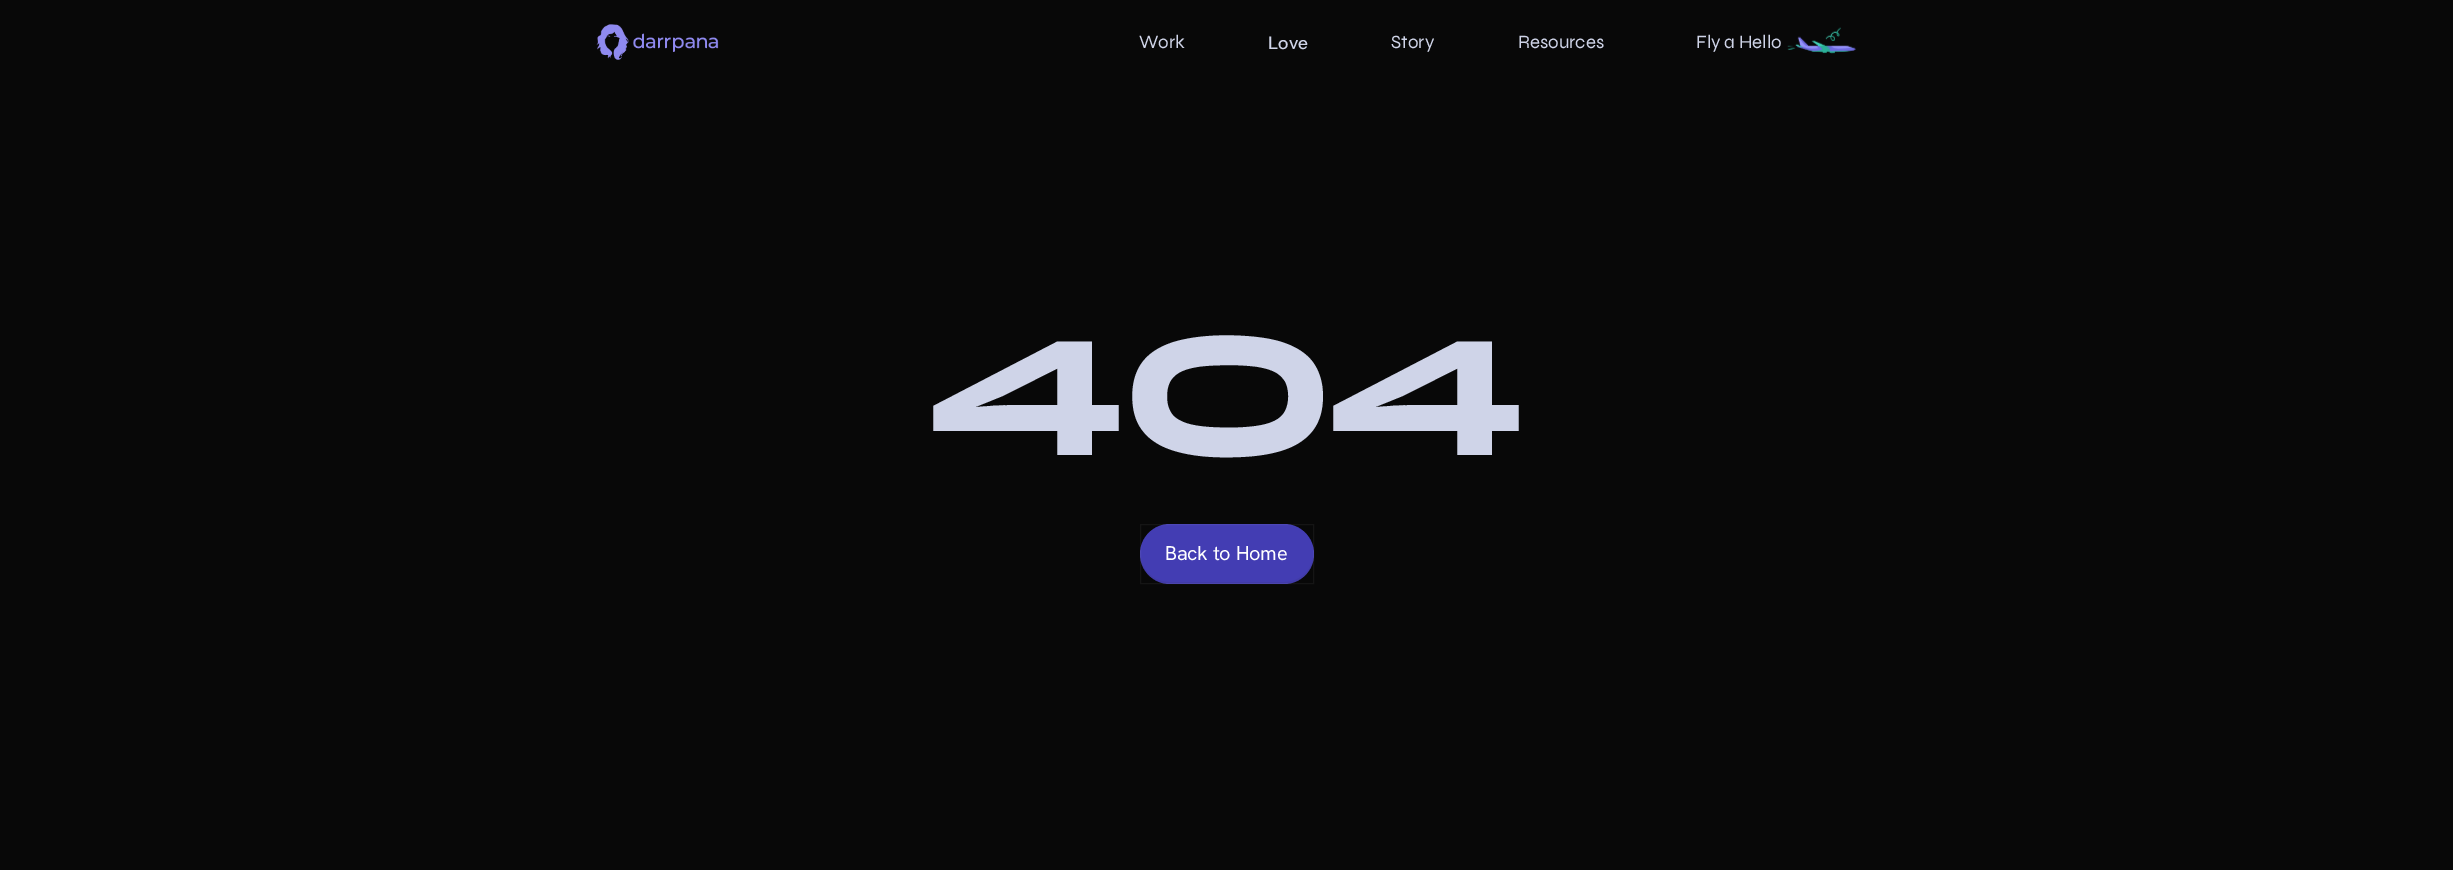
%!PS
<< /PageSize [2453 870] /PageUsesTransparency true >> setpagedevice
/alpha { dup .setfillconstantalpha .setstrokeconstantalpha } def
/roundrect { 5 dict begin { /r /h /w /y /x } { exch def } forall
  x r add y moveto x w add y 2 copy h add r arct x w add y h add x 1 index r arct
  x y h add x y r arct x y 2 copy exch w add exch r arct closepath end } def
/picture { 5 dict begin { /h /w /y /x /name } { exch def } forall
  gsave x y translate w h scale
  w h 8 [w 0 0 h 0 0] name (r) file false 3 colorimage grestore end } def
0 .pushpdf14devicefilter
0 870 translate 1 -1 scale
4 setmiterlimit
0.031 setgray
0 0 2453 870 rectfill
(img1.rgb) 596 24 123 36 picture
/Syne-Regular [18.75 0 0 -18.75 0 0] selectfont
0.812 0.831 0.91 setrgbcolor
1139 48 moveto (Work) show
/InstrumentSans-Medium [17.5 0 0 -17.5 0 0] selectfont
1268 49 moveto (Love) show
/Syne-Regular [18.75 0 0 -18.75 0 0] selectfont
1391 48 moveto (Story) show
1518 48 moveto (Resources) show
1696 48 moveto (Fly a Hello) show
(img2.rgb) 1787 27 69 27 picture
/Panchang-Bold [172.5 0 0 -172.5 0 0] selectfont
930 455 moveto -1 0 (404) ashow
0.263 0.239 0.702 setrgbcolor
1140 524 174 60 30 roundrect fill
0.1 alpha
0.184 0.169 0.263 setrgbcolor
newpath 1140 553 moveto 1140 554 lineto 1140 571 1153 584 1170 584 curveto 1284 584 lineto 1301 584 1314 571 1314 554 curveto 1314 553 lineto 1313 570 1300 582 1284 582 curveto 1170 582 lineto 1153 582 1141 570 1140 553 curveto closepath fill
0.05 alpha
1 setgray
1140.5 524.5 173 59 rectstroke
/HankenGrotesk-Regular [20 0 0 -20 0 0] selectfont
1 alpha
1165 560 moveto -0.25 0 (Back to Home) ashow
.poppdf14devicefilter showpage
